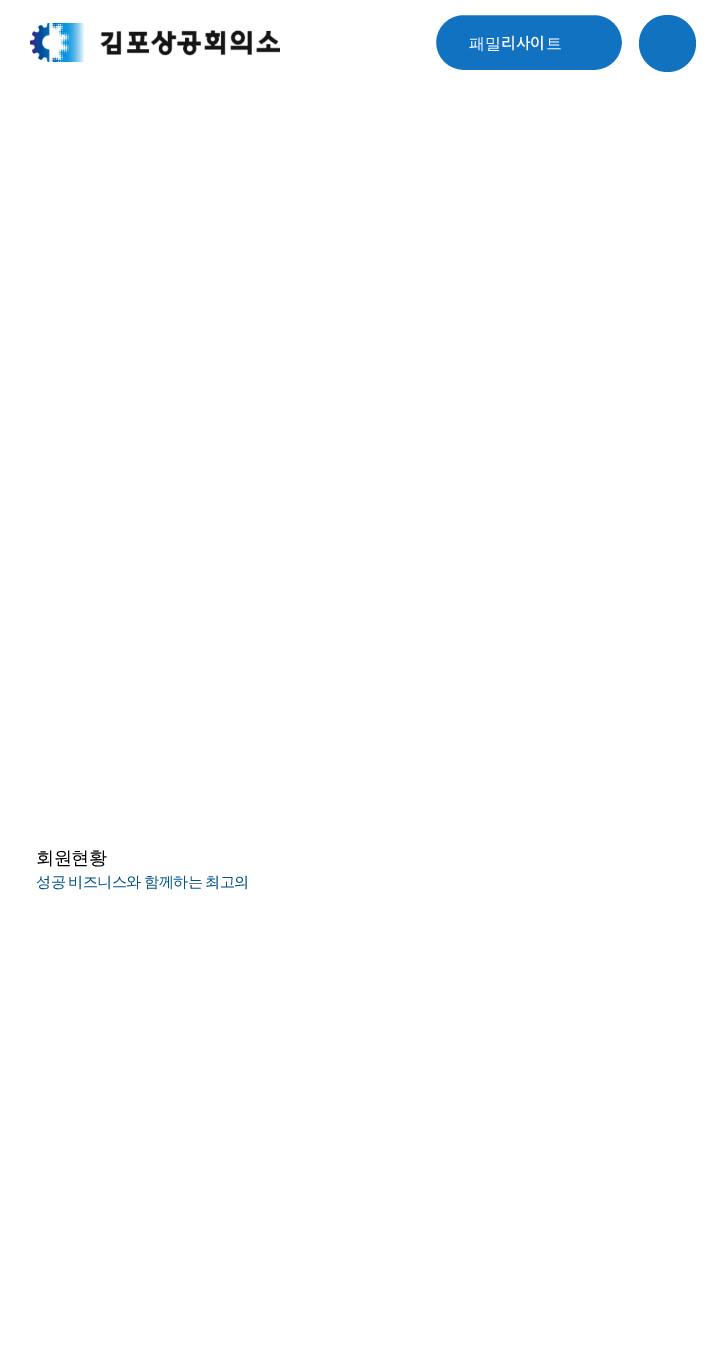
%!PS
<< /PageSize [726 1370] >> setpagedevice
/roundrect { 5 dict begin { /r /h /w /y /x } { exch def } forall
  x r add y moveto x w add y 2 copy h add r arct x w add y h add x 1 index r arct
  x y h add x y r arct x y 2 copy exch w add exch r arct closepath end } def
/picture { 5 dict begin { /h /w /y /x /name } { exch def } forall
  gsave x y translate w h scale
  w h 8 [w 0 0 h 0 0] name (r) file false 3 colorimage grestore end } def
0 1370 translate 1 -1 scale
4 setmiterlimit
1 setgray
0 0 726 1370 rectfill
(img1.rgb) 30 23 250 39 picture
0.067 0.447 0.757 setrgbcolor
435 14 188 57 28.5 roundrect gsave fill grestore
1 setgray
2 setlinewidth
stroke
/WenQuanYiZenHei-Medium [16 0 0 -16 0 0] selectfont
469 49 moveto (패밀) show
/NotoSansKR-Medium [16 0 0 -16 0 0] selectfont
501 49 moveto (리사이) show
/WenQuanYiZenHei-Medium [16 0 0 -16 0 0] selectfont
546 49 moveto (트) show
0.067 0.447 0.753 setrgbcolor
newpath 667.5 43.5 28.5 0 360 arc closepath fill
/WenQuanYiZenHei-Medium [18 0 0 -18 0 0] selectfont
0 setgray
36 864 moveto -0.5 0 (회원현황) ashow
/WenQuanYiZenHei-Medium [15 0 0 -15 0 0] selectfont
0 0.322 0.537 setrgbcolor
36 887 moveto -0.5 0 (성공) ashow
68 887 moveto -0.5 0 (비즈니스와) ashow
144 887 moveto -0.5 0 (함께하는) ashow
205 887 moveto -0.5 0 (최고의) ashow
showpage
